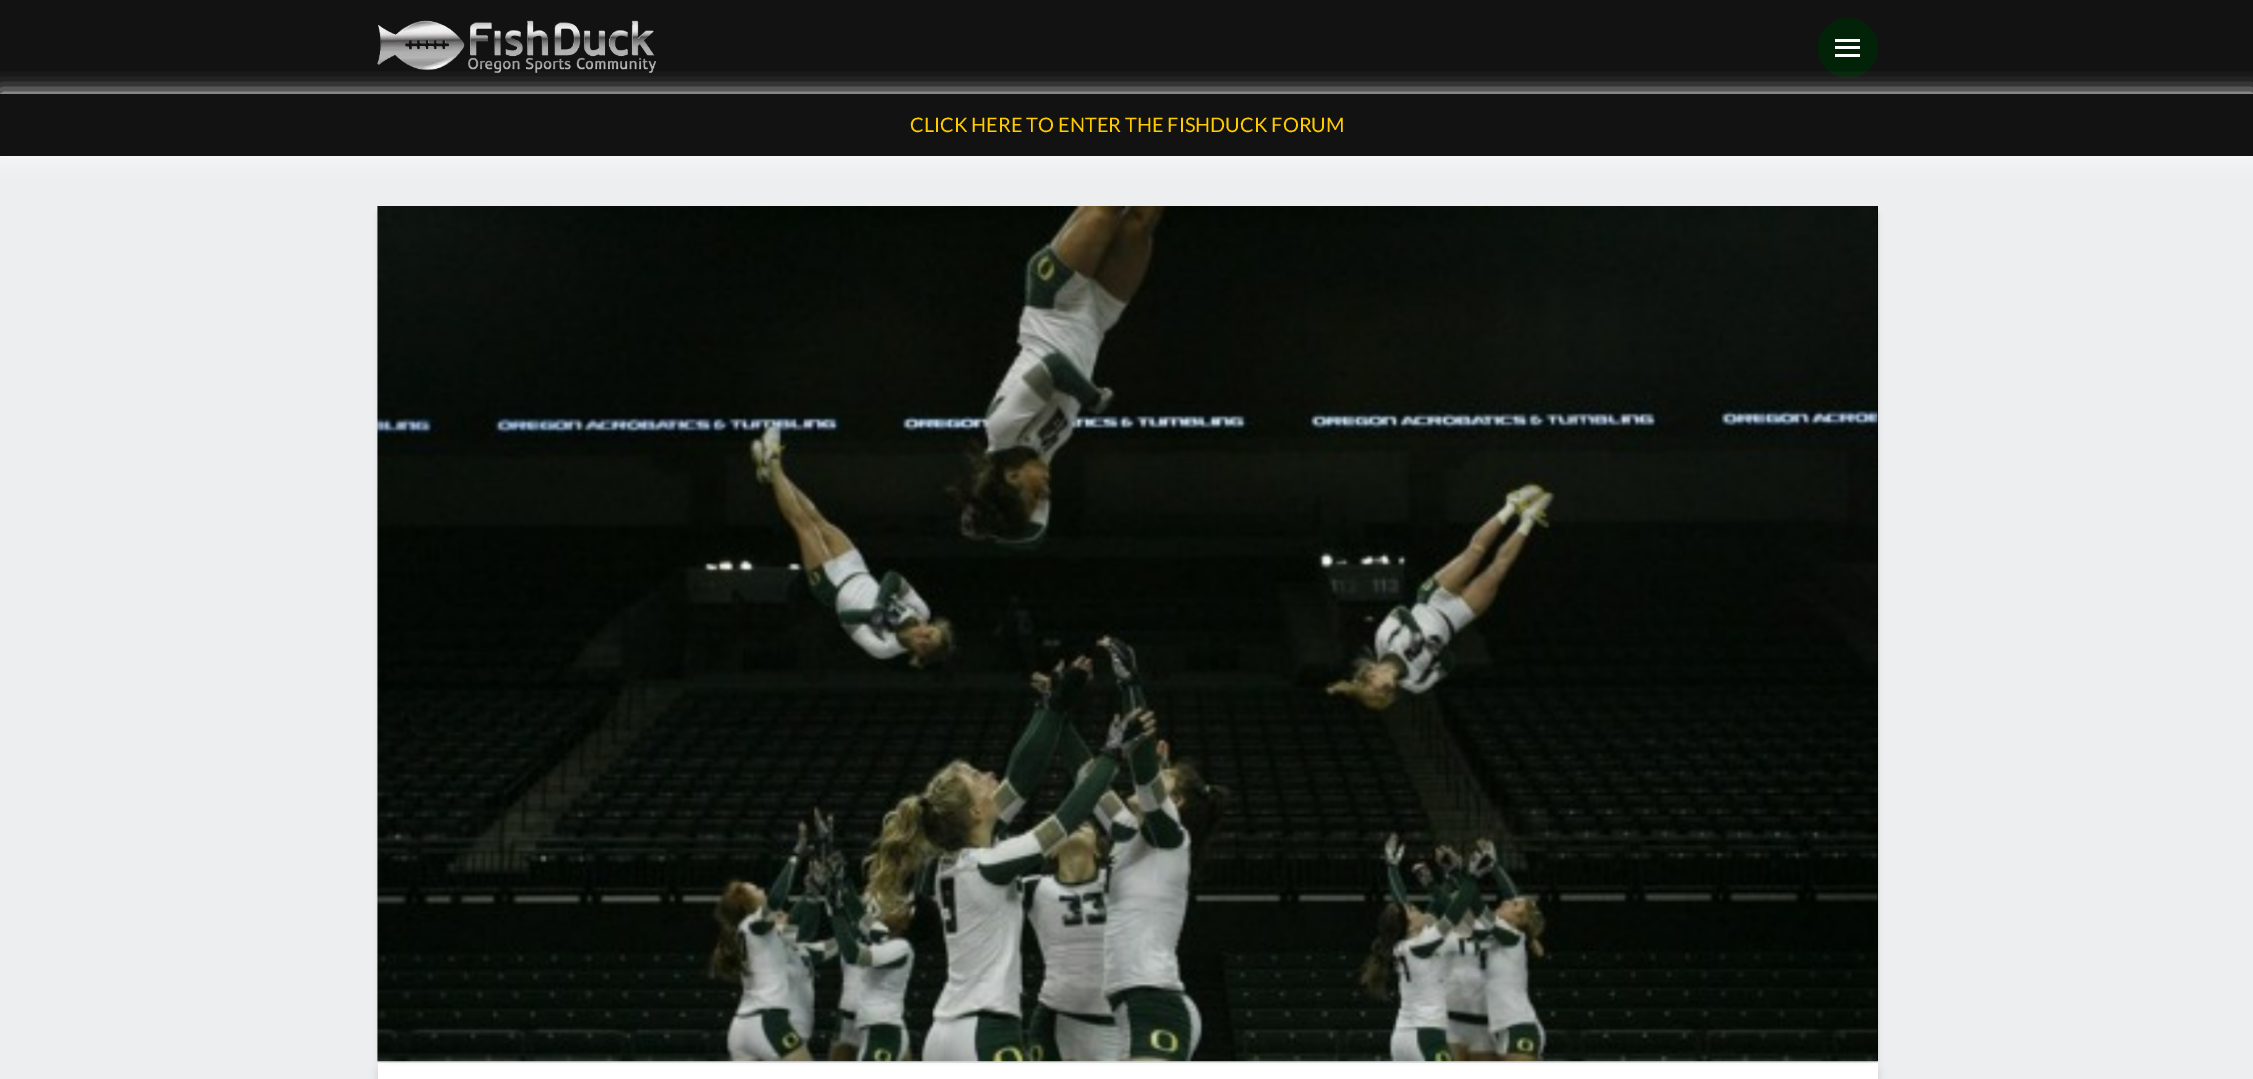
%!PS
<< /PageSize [2253 1079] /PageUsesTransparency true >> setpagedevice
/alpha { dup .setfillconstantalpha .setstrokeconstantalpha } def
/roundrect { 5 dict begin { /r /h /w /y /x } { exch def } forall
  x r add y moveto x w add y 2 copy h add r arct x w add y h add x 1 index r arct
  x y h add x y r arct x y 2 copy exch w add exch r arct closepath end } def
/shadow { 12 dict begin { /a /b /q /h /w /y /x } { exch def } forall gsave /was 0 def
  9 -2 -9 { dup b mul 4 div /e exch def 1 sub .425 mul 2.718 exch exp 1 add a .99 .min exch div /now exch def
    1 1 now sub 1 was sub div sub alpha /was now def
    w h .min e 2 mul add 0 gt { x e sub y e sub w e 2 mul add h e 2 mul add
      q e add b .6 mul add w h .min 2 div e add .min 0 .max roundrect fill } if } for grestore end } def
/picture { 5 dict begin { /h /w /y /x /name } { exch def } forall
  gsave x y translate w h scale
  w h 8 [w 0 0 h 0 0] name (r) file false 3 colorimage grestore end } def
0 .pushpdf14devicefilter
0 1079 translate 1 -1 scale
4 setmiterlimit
0.929 0.933 0.941 setrgbcolor
0 0 2253 1079 rectfill
0.071 setgray
0 0 2253 94 rectfill
(img1.rgb) 377 20 280 53 picture
0.012 0.137 0.031 setrgbcolor
newpath 1848 48 30 0 360 arc closepath fill
1 setgray
1835 39 25 3 rectfill
1835 46 25 3 rectfill
1835 54 25 3 rectfill
0 94 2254 62 0 10 1 shadow
0.071 setgray
0 94 2253 62 rectfill
/Lato-Regular [20 0 0 -20 0 0] selectfont
1 0.8 0 setrgbcolor
910 132 moveto (CLICK HERE TO ENTER THE FISHDUCK FORUM) show
0 setgray
378 1066 1500 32 5 4.5 0.13 shadow
1 setgray
378 1063 1500 16 rectfill
0 setgray
378 214 1490 846 0 2.5 0.13 shadow
388 214 1490 846 0 2.5 0.13 shadow
0.867 setgray
378 1061 1500 1 rectfill
0 setgray
378 206 1500 855 rectfill
(img2.rgb) 377 206 1501 856 picture
.poppdf14devicefilter showpage
